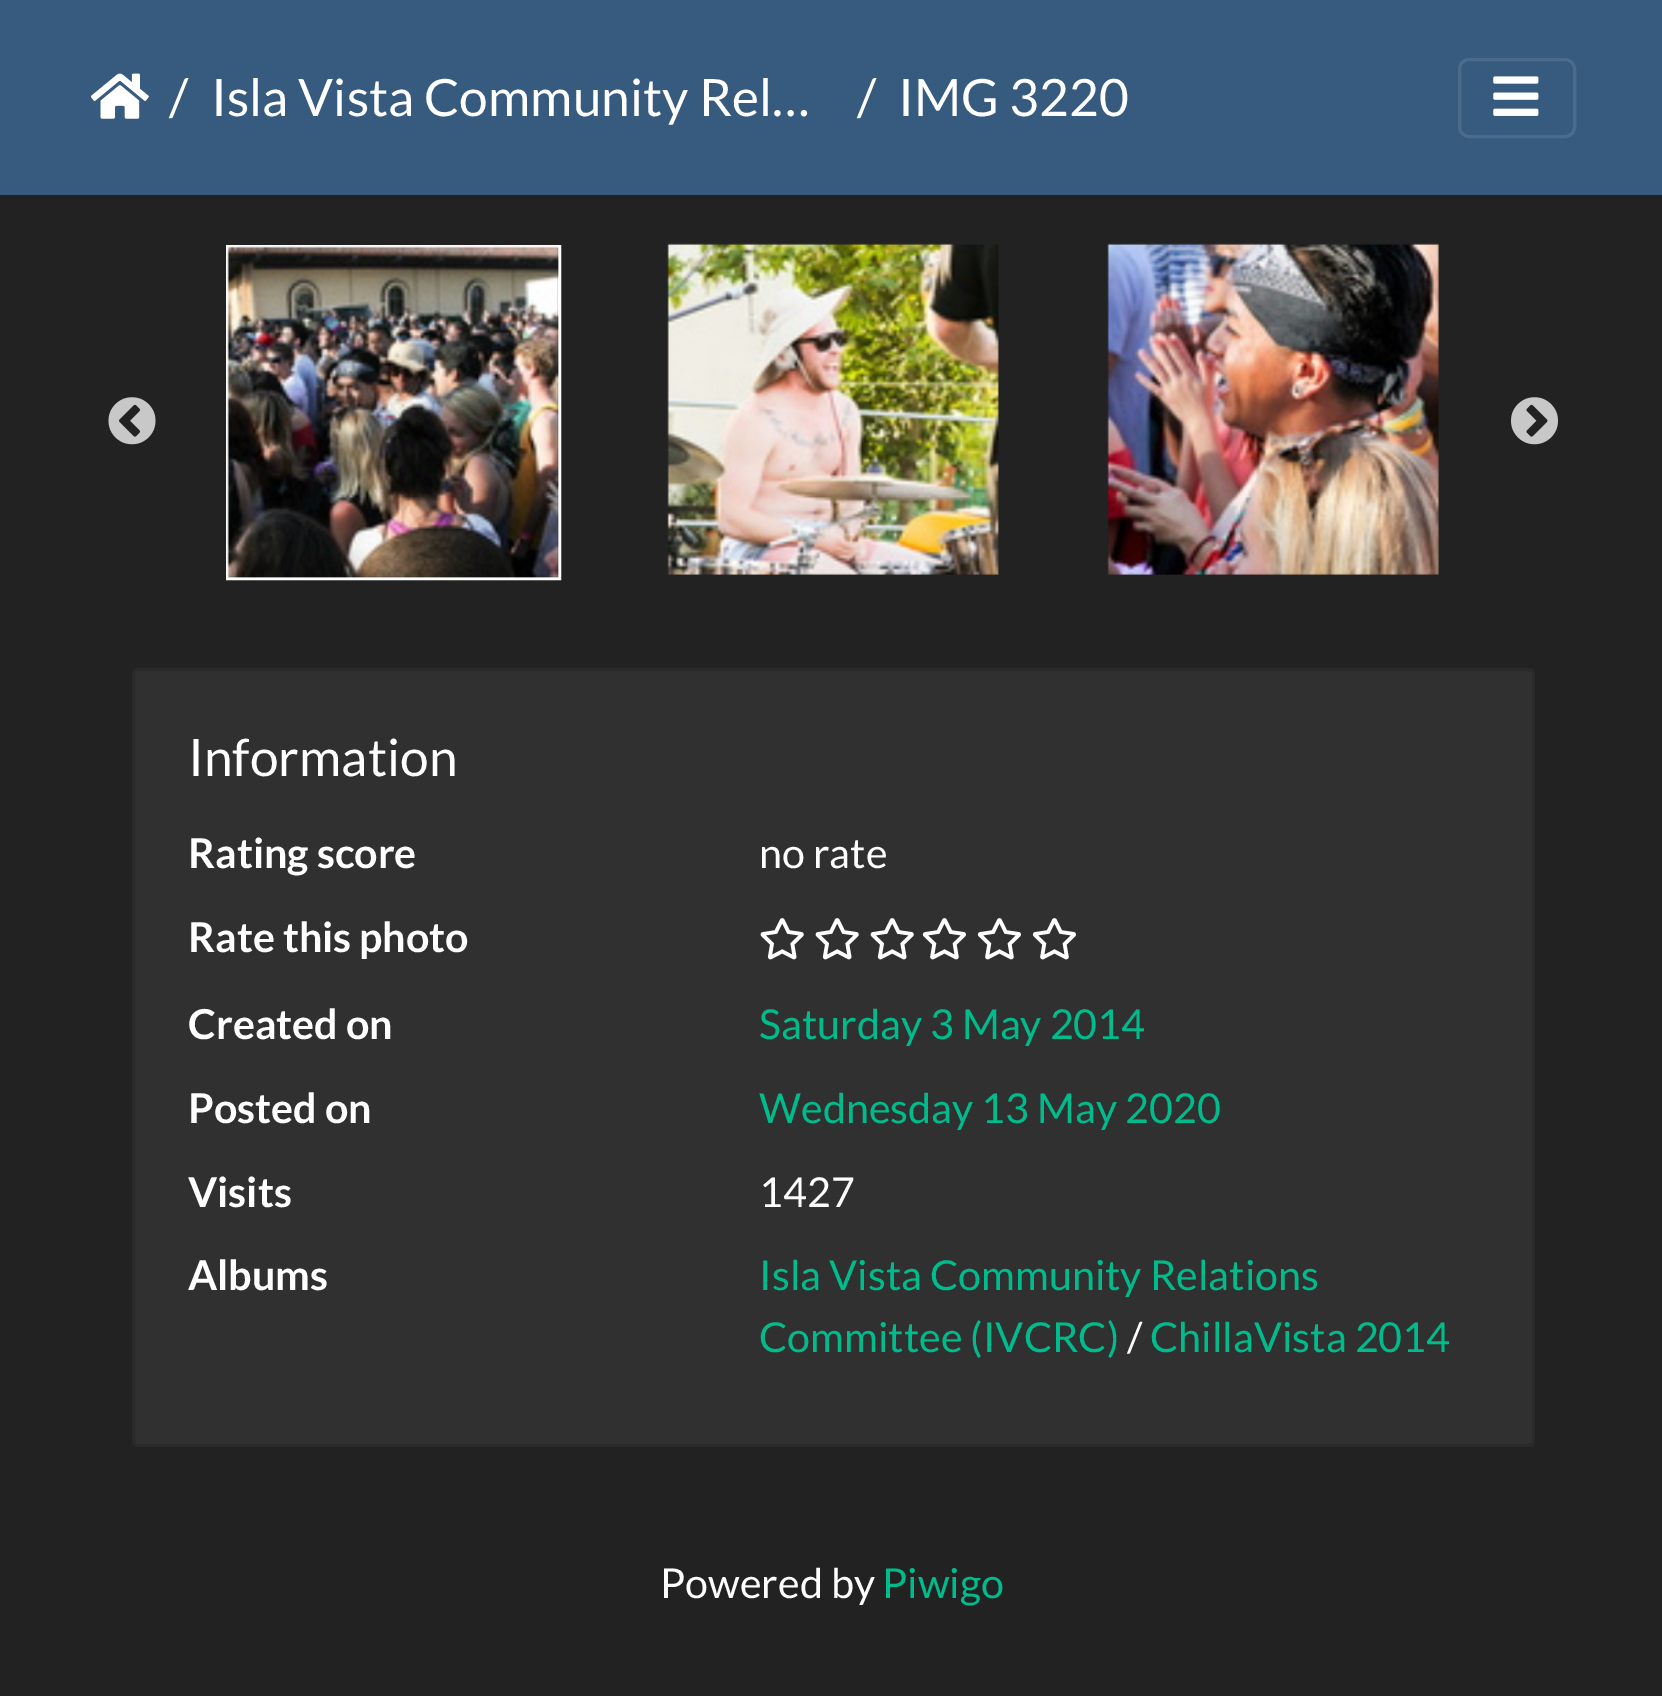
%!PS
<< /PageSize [1662 1696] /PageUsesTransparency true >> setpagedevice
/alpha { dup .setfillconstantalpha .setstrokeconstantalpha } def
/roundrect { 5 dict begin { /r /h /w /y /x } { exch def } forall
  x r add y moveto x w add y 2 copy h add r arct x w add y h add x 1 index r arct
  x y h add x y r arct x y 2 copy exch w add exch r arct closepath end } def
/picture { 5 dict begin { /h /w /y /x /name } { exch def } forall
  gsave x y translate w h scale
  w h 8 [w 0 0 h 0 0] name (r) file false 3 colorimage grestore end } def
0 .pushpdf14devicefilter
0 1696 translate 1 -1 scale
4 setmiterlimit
0.133 setgray
0 0 1662 1696 rectfill
0.216 0.353 0.498 setrgbcolor
0 0 1662 195 rectfill
(img1.rgb) 91 73 58 46 picture
/Lato-Regular [51.5 0 0 -51.5 0 0] selectfont
1 setgray
169 116 moveto (/) show
211 116 moveto (Isla Vista Community Rel…) show
857 116 moveto (/) show
898 116 moveto (IMG 3220) show
0.294 0.42 0.549 setrgbcolor
3 setlinewidth
1459.5 59.5 115 77 9.5 roundrect stroke
(img2.rgb) 1493 76 46 40 picture
(img3.rgb) 108 397 48 48 picture
1 setgray
227.5 246.5 332 332 rectstroke
(img4.rgb) 227 246 332 332 picture
(img5.rgb) 667 243 332 332 picture
(img6.rgb) 1107 243 332 332 picture
(img7.rgb) 1511 397 47 48 picture
0.188 setgray
132 668 1403 779 6 roundrect fill
0.12 alpha
0 setgray
133.5 669.5 1400 776 4.5 roundrect stroke
1 alpha
1 setgray
188 776 moveto (Information) show
/Lato-Bold [41.25 0 0 -41.25 0 0] selectfont
188 868 moveto (Rating score) show
/Lato-Regular [41.25 0 0 -41.25 0 0] selectfont
759 868 moveto (no rate) show
/Lato-Bold [41.25 0 0 -41.25 0 0] selectfont
188 952 moveto (Rate this photo) show
(img8.rgb) 760 918 44 42 picture
(img8.rgb) 815 918 44 42 picture
(img8.rgb) 870 918 44 42 picture
(img9.rgb) 922 918 44 42 picture
(img9.rgb) 977 918 44 42 picture
(img9.rgb) 1032 918 44 42 picture
188 1039 moveto (Created on) show
/Lato-Regular [41.25 0 0 -41.25 0 0] selectfont
0 0.737 0.549 setrgbcolor
759 1039 moveto (Saturday 3 May 2014) show
/Lato-Bold [41.25 0 0 -41.25 0 0] selectfont
1 setgray
188 1123 moveto (Posted on) show
/Lato-Regular [41.25 0 0 -41.25 0 0] selectfont
0 0.737 0.549 setrgbcolor
759 1123 moveto (Wednesday 13 May 2020) show
/Lato-Bold [41.25 0 0 -41.25 0 0] selectfont
1 setgray
188 1207 moveto (Visits) show
/Lato-Regular [41.25 0 0 -41.25 0 0] selectfont
759 1207 moveto (1427) show
/Lato-Bold [41.25 0 0 -41.25 0 0] selectfont
188 1290 moveto (Albums) show
/Lato-Regular [41.25 0 0 -41.25 0 0] selectfont
0 0.737 0.549 setrgbcolor
759 1290 moveto (Isla Vista Community Relations) show
759 1352 moveto (Committee \(IVCRC\)) show
1 setgray
1127 1352 moveto (/) show
0 0.737 0.549 setrgbcolor
1150 1352 moveto (ChillaVista 2014) show
1 setgray
660 1598 moveto (Powered by) show
0 0.737 0.549 setrgbcolor
882 1598 moveto (Piwigo) show
.poppdf14devicefilter showpage
